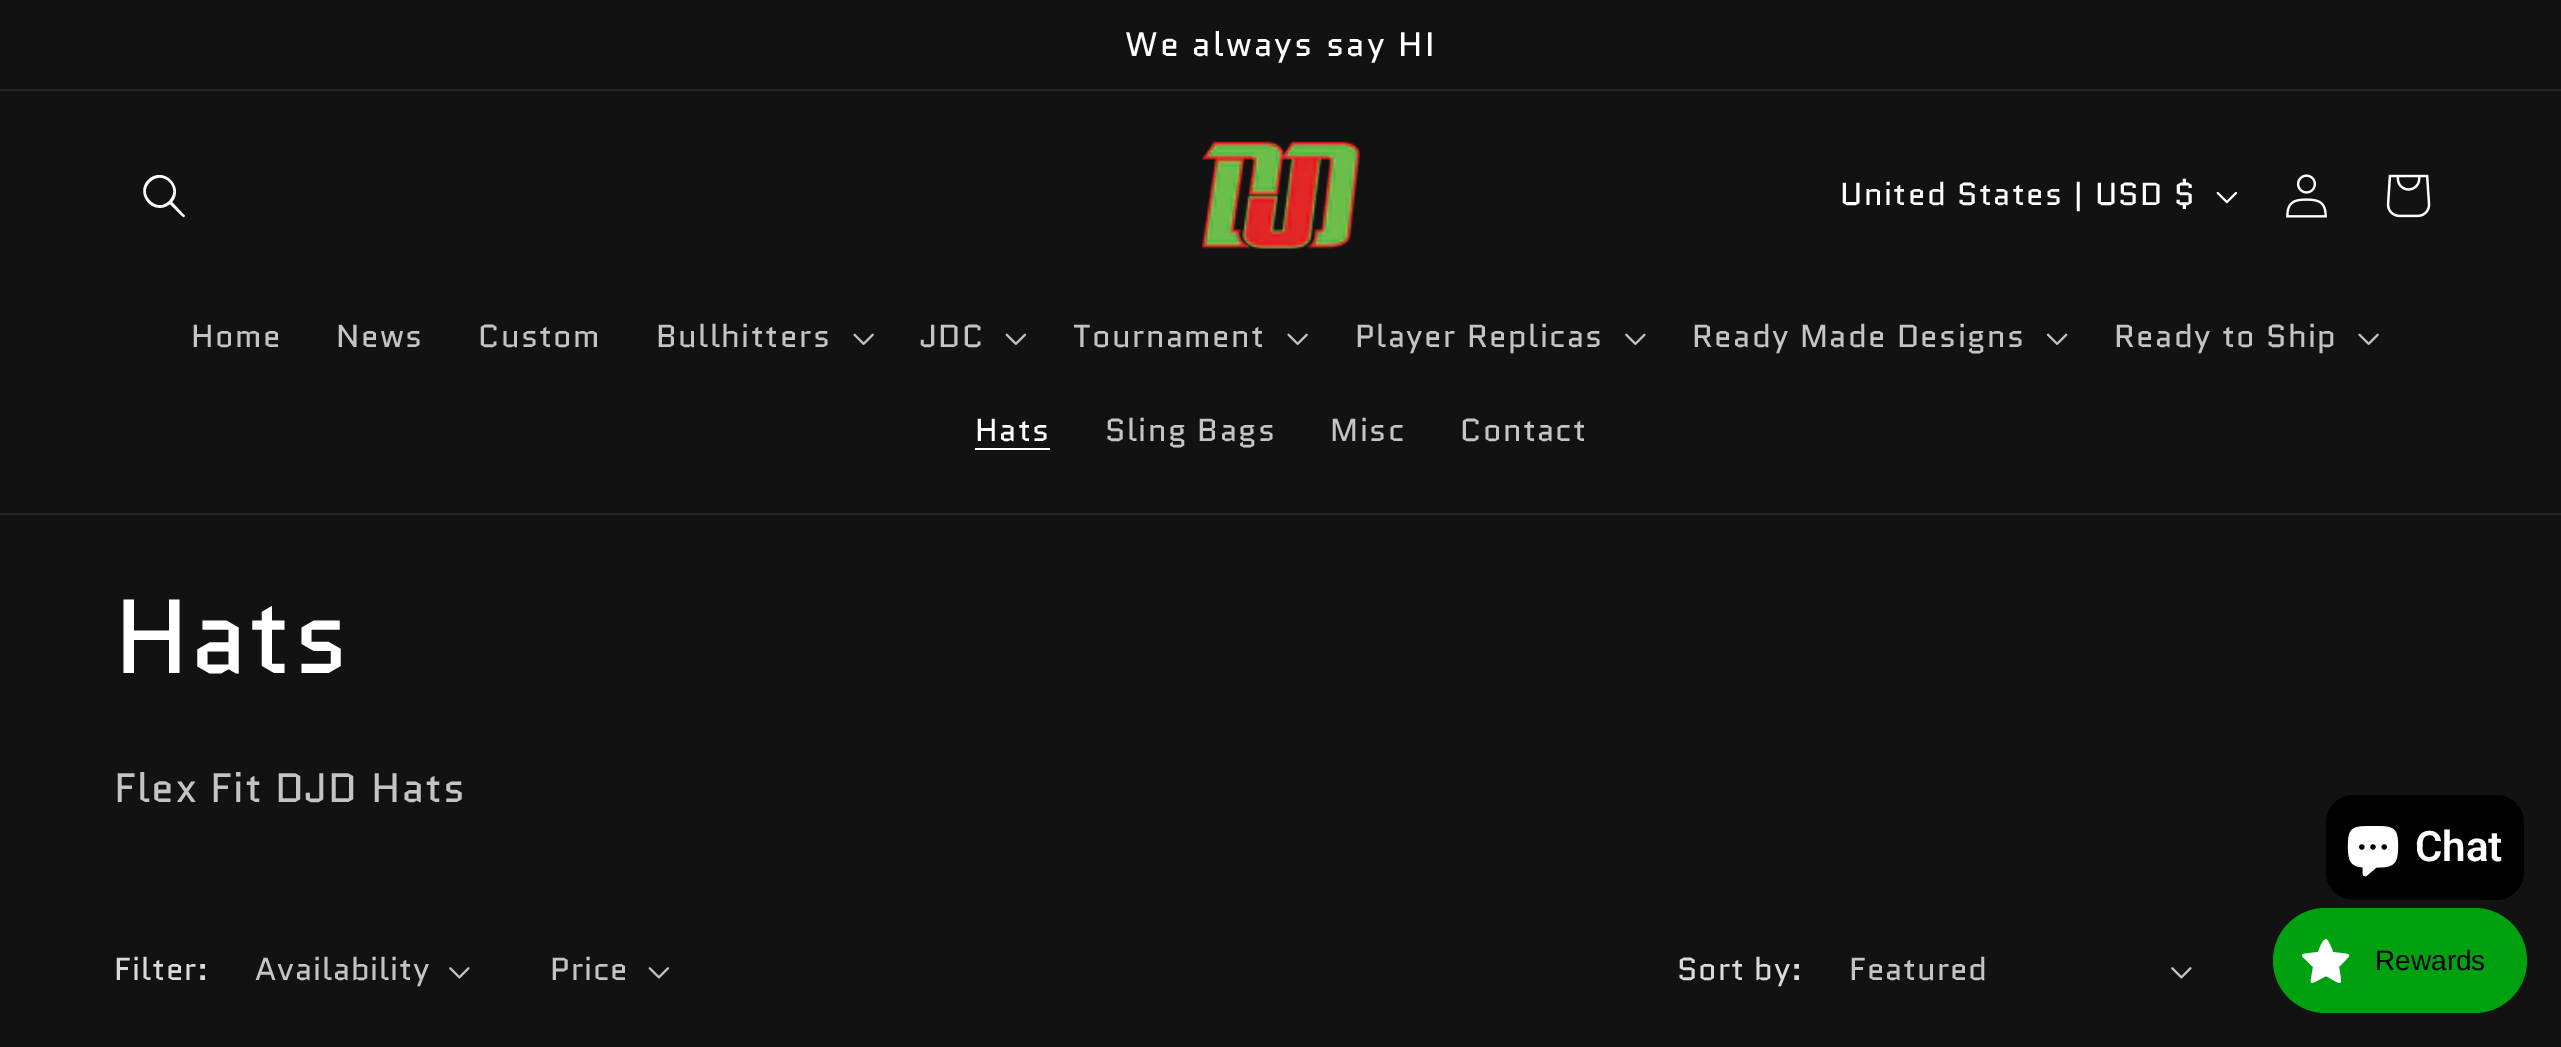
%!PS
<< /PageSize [2561 1047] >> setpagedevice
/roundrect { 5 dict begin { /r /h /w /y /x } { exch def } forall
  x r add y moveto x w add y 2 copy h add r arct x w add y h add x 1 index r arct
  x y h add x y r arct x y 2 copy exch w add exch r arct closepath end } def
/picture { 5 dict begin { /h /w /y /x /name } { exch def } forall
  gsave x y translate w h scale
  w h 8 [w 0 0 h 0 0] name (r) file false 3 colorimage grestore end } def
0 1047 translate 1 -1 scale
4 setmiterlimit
0.071 setgray
0 0 2561 1047 rectfill
0.145 setgray
0 89 2561 2 rectfill
/Quantico-Regular [34.1 0 0 -34.1 0 0] selectfont
1 setgray
1125 56 moveto 2.25 0 (We always say HI) ashow
0.145 setgray
0 513 2561 2 rectfill
1 setgray
newpath 169 201 moveto 157 214 137 194 150 182 curveto 163 169 182 188 169 201 curveto closepath 170 204 moveto 154 217 134 194 148 180 curveto 163 165 185 187 172 202 curveto 185 216 lineto 184 217 lineto 183 218 172 206 170 204 curveto closepath eofill
(img1.rgb) 1202 141 158 108 picture
/Quantico-Regular [31.8 0 0 -31.8 0 0] selectfont
1840 205 moveto 1.4 0 (United States | USD $) ashow
(img2.rgb) 2216 191 22 13 picture
(img3.rgb) 2286 174 41 44 picture
(img4.rgb) 2386 174 45 44 picture
0.769 setgray
191 347 moveto 1.4 0 (Home) ashow
336 347 moveto 1.4 0 (News) ashow
478 347 moveto 1.4 0 (Custom) ashow
656 347 moveto 1.4 0 (Bullhitters) ashow
(img5.rgb) 853 333 21 12 picture
920 347 moveto 1.4 0 (JDC) ashow
(img6.rgb) 1005 333 22 12 picture
1073 347 moveto 1.4 0 (Tournament) ashow
(img5.rgb) 1287 333 21 12 picture
1355 347 moveto 1.4 0 (Player Replicas) ashow
(img7.rgb) 1625 333 21 12 picture
1692 347 moveto 1.4 0 (Ready Made Designs) ashow
(img8.rgb) 2046 333 22 12 picture
2114 347 moveto 1.4 0 (Ready to Ship) ashow
(img5.rgb) 2358 333 21 12 picture
1 setgray
975 441 moveto 1.4 0 (Hats) ashow
975 448 75 2 rectfill
0.769 setgray
1105 441 moveto 1.4 0 (Sling Bags) ashow
1330 441 moveto 1.4 0 (Misc) ashow
1460 441 moveto 1.4 0 (Contact) ashow
/Quantico-Regular [105 0 0 -105 0 0] selectfont
1 setgray
114 673 moveto 1.5 0 (Hats) ashow
/Quantico-Regular [41 0 0 -41 0 0] selectfont
0.769 setgray
114 802 moveto 1.4 0 (Flex Fit DJD Hats) ashow
/Quantico-Regular [31.8 0 0 -31.8 0 0] selectfont
0.859 setgray
114 980 moveto 0.9 0 (Filter:) ashow
0.769 setgray
255 980 moveto 0.9 0 (Availability) ashow
(img9.rgb) 449 967 21 12 picture
550 980 moveto 0.9 0 (Price) ashow
(img10.rgb) 648 967 22 12 picture
0.859 setgray
1677 980 moveto 0.9 0 (Sort by:) ashow
0.769 setgray
1849 980 moveto 0.9 0 (Featured) ashow
(img9.rgb) 2171 967 21 12 picture
0 setgray
2326 795 198 105 28 roundrect fill
(img11.rgb) 2347 826 52 51 picture
/Roboto-SemiBold [42 0 0 -42 0 0] selectfont
1 setgray
2415 861 moveto (Chat) show
0 0.631 0.067 setrgbcolor
2273 908 254 105 52.5 roundrect fill
1 setgray
newpath 2326 939 moveto 2323 939 2319 949 2318 952 curveto 2297 955 2298 952 2313 967 curveto 2310 987 2307 986 2326 976 curveto 2344 986 2342 987 2339 967 curveto 2353 952 2354 955 2333 952 curveto 2332 949 2328 939 2326 939 curveto closepath fill
/LiberationSans-Regular [28 0 0 -28 0 0] selectfont
0 setgray
2375 970 moveto (Rewards) show
showpage
